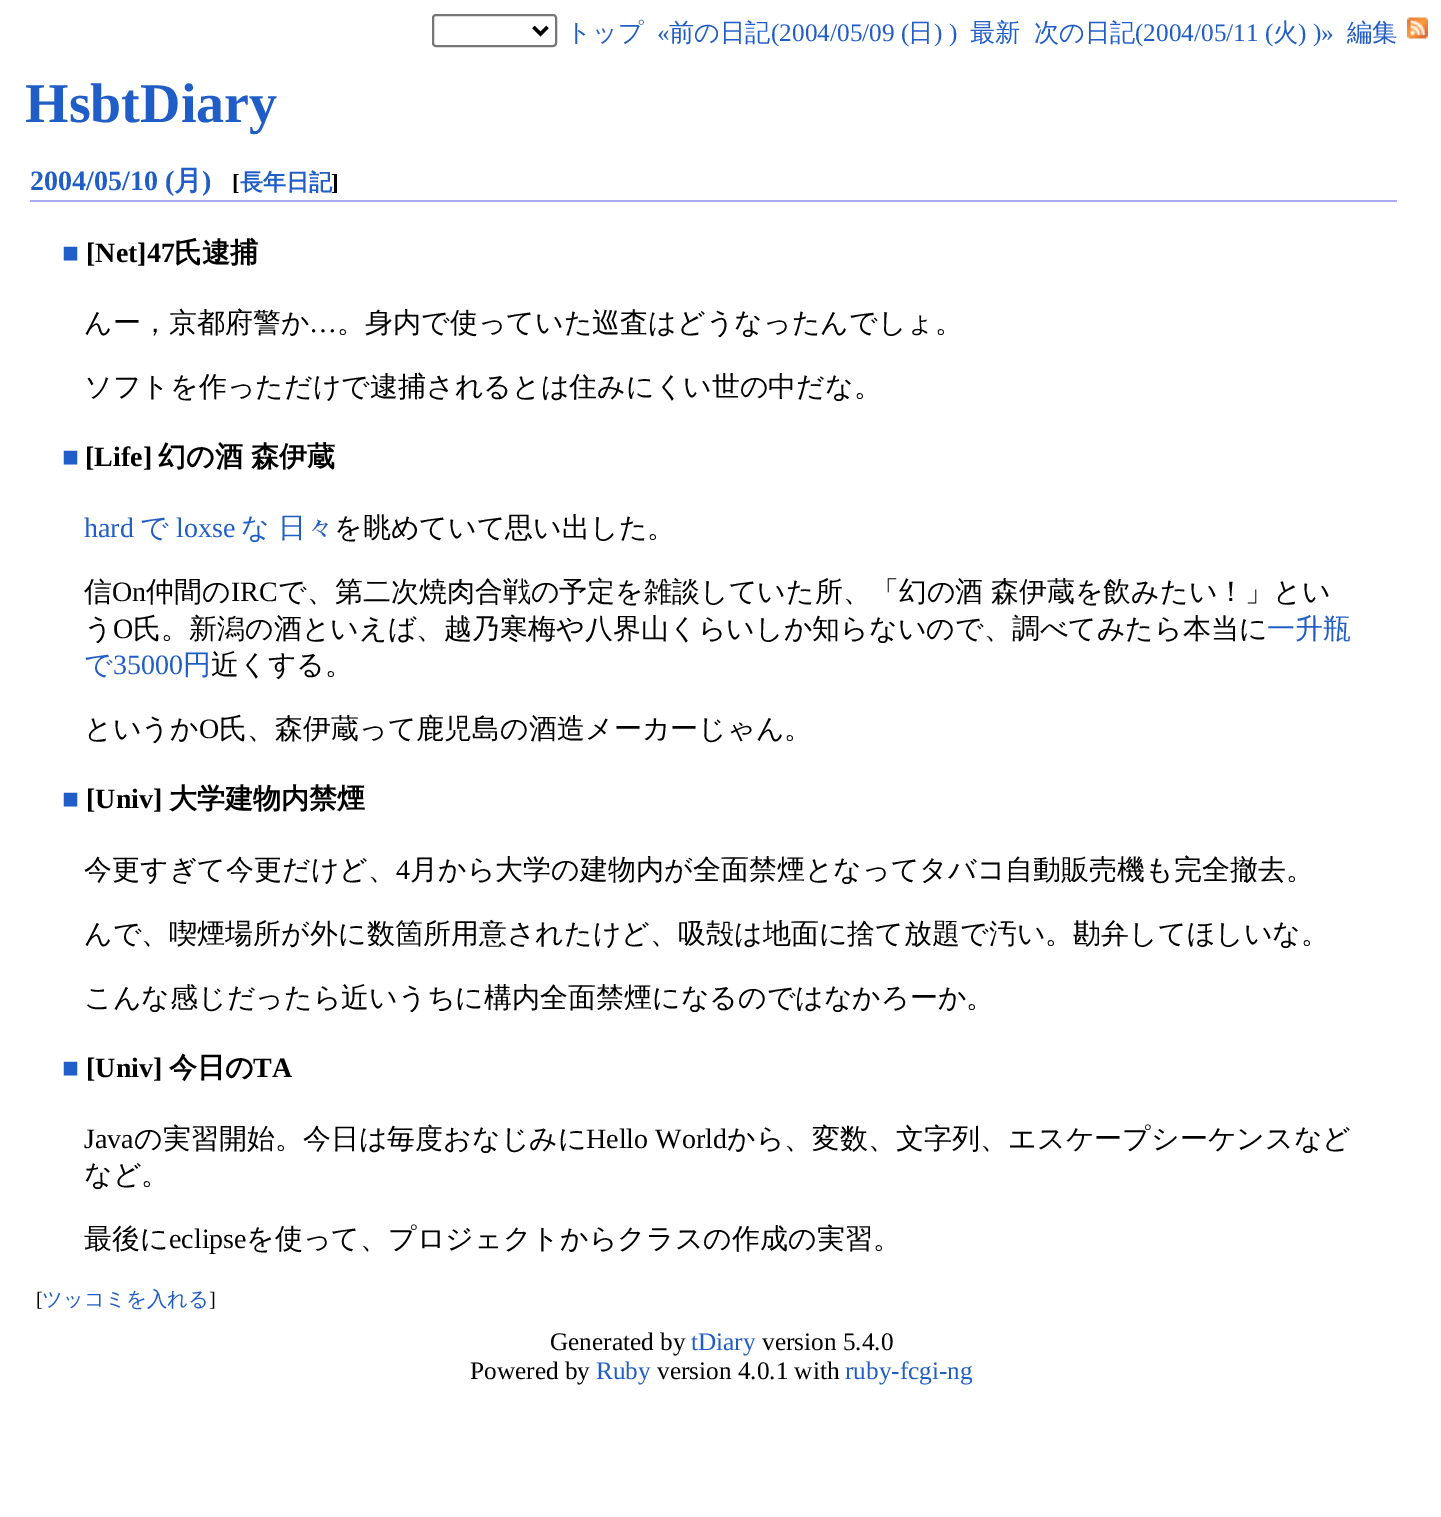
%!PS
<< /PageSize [1441 1517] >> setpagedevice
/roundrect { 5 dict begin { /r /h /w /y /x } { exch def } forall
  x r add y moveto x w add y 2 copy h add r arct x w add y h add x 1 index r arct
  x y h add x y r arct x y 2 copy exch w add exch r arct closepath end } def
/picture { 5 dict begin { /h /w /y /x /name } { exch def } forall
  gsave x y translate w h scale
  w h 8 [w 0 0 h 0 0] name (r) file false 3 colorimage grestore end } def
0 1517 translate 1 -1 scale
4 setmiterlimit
1 setgray
0 0 1441 1517 rectfill
0.463 setgray
2 setlinewidth
433 15 123 31 3 roundrect stroke
0 setgray
3.5 setlinewidth
newpath 533.5 27 moveto 540.5 34 lineto 547.5 27 lineto stroke
/WenQuanYiZenHei-Medium [25.25 0 0 -25.25 0 0] selectfont
0.129 0.365 0.776 setrgbcolor
566 41 moveto (トップ) show
/LiberationSerif-Regular [25.25 0 0 -25.25 0 0] selectfont
657 41 moveto («) show
/WenQuanYiZenHei-Medium [25.25 0 0 -25.25 0 0] selectfont
669 41 moveto (前の日記) show
/LiberationSerif-Regular [25.25 0 0 -25.25 0 0] selectfont
771 41 moveto (\(2004/05/09 \() show
/WenQuanYiZenHei-Medium [25.25 0 0 -25.25 0 0] selectfont
908 41 moveto (日) show
/LiberationSerif-Regular [25.25 0 0 -25.25 0 0] selectfont
934 41 moveto (\) \)) show
/WenQuanYiZenHei-Medium [25.25 0 0 -25.25 0 0] selectfont
970 41 moveto (最新) show
1034 41 moveto (次の日記) show
/LiberationSerif-Regular [25.25 0 0 -25.25 0 0] selectfont
1135 41 moveto (\(2004/05/11 \() show
/WenQuanYiZenHei-Medium [25.25 0 0 -25.25 0 0] selectfont
1273 41 moveto (火) show
/LiberationSerif-Regular [25.25 0 0 -25.25 0 0] selectfont
1298 41 moveto (\) \)») show
/WenQuanYiZenHei-Medium [25.25 0 0 -25.25 0 0] selectfont
1347 41 moveto (編集) show
(img1.rgb) 1407 17 21 22 picture
/LiberationSerif-Bold [56 0 0 -56 0 0] selectfont
25 122 moveto (HsbtDiary) show
0.667 0.667 1 setrgbcolor
30 200 1367 2 rectfill
/LiberationSerif-Bold [28 0 0 -28 0 0] selectfont
0.129 0.365 0.776 setrgbcolor
30 190 moveto (2004/05/10 \() show
/WenQuanYiZenHei-Bold [28 0 0 -28 0 0] selectfont
174 190 moveto (月) show
/LiberationSerif-Bold [28 0 0 -28 0 0] selectfont
202 190 moveto (\)) show
/LiberationSerif-Bold [23 0 0 -23 0 0] selectfont
0 setgray
232 190 moveto ([) show
/WenQuanYiZenHei-Bold [23 0 0 -23 0 0] selectfont
0.129 0.365 0.776 setrgbcolor
240 190 moveto (長年日記) show
/LiberationSerif-Bold [23 0 0 -23 0 0] selectfont
0 setgray
331 190 moveto (]) show
/LiberationSerif-Bold [28 0 0 -28 0 0] selectfont
0.129 0.365 0.776 setrgbcolor
62 262 moveto (■) show
0 setgray
86 262 moveto ([Net]47) show
/WenQuanYiZenHei-Bold [28 0 0 -28 0 0] selectfont
174 262 moveto (氏逮捕) show
/WenQuanYiZenHei-Medium [28 0 0 -28 0 0] selectfont
84 332 moveto (んー，京都府警か) show
/LiberationSerif-Regular [28 0 0 -28 0 0] selectfont
309 332 moveto (…) show
/WenQuanYiZenHei-Medium [28 0 0 -28 0 0] selectfont
337 332 moveto (。身内で使っていた巡査はどうなったんでしょ。) show
84 396 moveto (ソフトを作っただけで逮捕されるとは住みにくい世の中だな。) show
/LiberationSerif-Bold [28 0 0 -28 0 0] selectfont
0.129 0.365 0.776 setrgbcolor
62 466 moveto (■) show
0 setgray
85 466 moveto ([Life]) show
/WenQuanYiZenHei-Bold [28 0 0 -28 0 0] selectfont
158 466 moveto (幻の酒 森伊蔵) show
/LiberationSerif-Regular [28 0 0 -28 0 0] selectfont
0.129 0.365 0.776 setrgbcolor
84 537 moveto (hard) show
/WenQuanYiZenHei-Medium [28 0 0 -28 0 0] selectfont
140 537 moveto (で) show
/LiberationSerif-Regular [28 0 0 -28 0 0] selectfont
176 537 moveto (loxse) show
/WenQuanYiZenHei-Medium [28 0 0 -28 0 0] selectfont
241 537 moveto (な 日々) show
0 setgray
334 537 moveto (を眺めていて思い出した。) show
84 601 moveto (信) show
/LiberationSerif-Regular [28 0 0 -28 0 0] selectfont
112 601 moveto (On) show
/WenQuanYiZenHei-Medium [28 0 0 -28 0 0] selectfont
146 601 moveto (仲間の) show
/LiberationSerif-Regular [28 0 0 -28 0 0] selectfont
231 601 moveto (IRC) show
/WenQuanYiZenHei-Medium [28 0 0 -28 0 0] selectfont
278 601 moveto -1 0 32 (で、第二次焼肉合戦の予定を雑談していた所、「幻の酒 森伊蔵を飲みたい！」とい) widthshow
84 638 moveto (う) show
/LiberationSerif-Regular [28 0 0 -28 0 0] selectfont
113 638 moveto (O) show
/WenQuanYiZenHei-Medium [28 0 0 -28 0 0] selectfont
133 638 moveto (氏。新潟の酒といえば、越乃寒梅や八界山くらいしか知らないので、調べてみたら本当に) show
0.129 0.365 0.776 setrgbcolor
1267 638 moveto (一升瓶) show
84 674 moveto (で) show
/LiberationSerif-Regular [28 0 0 -28 0 0] selectfont
113 674 moveto (35000) show
/WenQuanYiZenHei-Medium [28 0 0 -28 0 0] selectfont
183 674 moveto (円) show
0 setgray
211 674 moveto (近くする。) show
84 738 moveto (というか) show
/LiberationSerif-Regular [28 0 0 -28 0 0] selectfont
199 738 moveto (O) show
/WenQuanYiZenHei-Medium [28 0 0 -28 0 0] selectfont
219 738 moveto (氏、森伊蔵って鹿児島の酒造メーカーじゃん。) show
/LiberationSerif-Bold [28 0 0 -28 0 0] selectfont
0.129 0.365 0.776 setrgbcolor
62 808 moveto (■) show
0 setgray
86 808 moveto ([Univ]) show
/WenQuanYiZenHei-Bold [28 0 0 -28 0 0] selectfont
169 808 moveto (大学建物内禁煙) show
/WenQuanYiZenHei-Medium [28 0 0 -28 0 0] selectfont
84 879 moveto (今更すぎて今更だけど、) show
/LiberationSerif-Regular [28 0 0 -28 0 0] selectfont
396 879 moveto (4) show
/WenQuanYiZenHei-Medium [28 0 0 -28 0 0] selectfont
410 879 moveto (月から大学の建物内が全面禁煙となってタバコ自動販売機も完全撤去。) show
84 943 moveto (んで、喫煙場所が外に数箇所用意されたけど、吸殻は地面に捨て放題で汚い。勘弁してほしいな。) show
84 1007 moveto (こんな感じだったら近いうちに構内全面禁煙になるのではなかろーか。) show
/LiberationSerif-Bold [28 0 0 -28 0 0] selectfont
0.129 0.365 0.776 setrgbcolor
62 1077 moveto (■) show
0 setgray
86 1077 moveto ([Univ]) show
/WenQuanYiZenHei-Bold [28 0 0 -28 0 0] selectfont
169 1077 moveto (今日の) show
/LiberationSerif-Bold [28 0 0 -28 0 0] selectfont
253 1077 moveto (TA) show
/LiberationSerif-Regular [28 0 0 -28 0 0] selectfont
84 1148 moveto (Java) show
/WenQuanYiZenHei-Medium [28 0 0 -28 0 0] selectfont
134 1148 moveto (の実習開始。今日は毎度おなじみに) show
/LiberationSerif-Regular [28 0 0 -28 0 0] selectfont
586 1148 moveto (Hello World) show
/WenQuanYiZenHei-Medium [28 0 0 -28 0 0] selectfont
727 1148 moveto (から、変数、文字列、エスケープシーケンスなど) show
84 1184 moveto (など。) show
84 1248 moveto (最後に) show
/LiberationSerif-Regular [28 0 0 -28 0 0] selectfont
169 1248 moveto (eclipse) show
/WenQuanYiZenHei-Medium [28 0 0 -28 0 0] selectfont
246 1248 moveto (を使って、プロジェクトからクラスの作成の実習。) show
/LiberationSerif-Regular [20.5 0 0 -20.5 0 0] selectfont
36 1306 moveto ([) show
/WenQuanYiZenHei-Medium [20.5 0 0 -20.5 0 0] selectfont
0.129 0.365 0.776 setrgbcolor
42 1306 moveto (ツッコミを入れる) show
/LiberationSerif-Regular [20.5 0 0 -20.5 0 0] selectfont
0 setgray
209 1306 moveto (]) show
/LiberationSerif-Regular [25.25 0 0 -25.25 0 0] selectfont
550 1350 moveto (Generated by) show
0.129 0.365 0.776 setrgbcolor
691 1350 moveto (tDiary) show
0 setgray
762 1350 moveto (version 5.4.0) show
470 1379 moveto (Powered by) show
0.129 0.365 0.776 setrgbcolor
596 1379 moveto (Ruby) show
0 setgray
657 1379 moveto (version 4.0.1 with) show
0.129 0.365 0.776 setrgbcolor
845 1379 moveto (ruby-fcgi-ng) show
showpage
